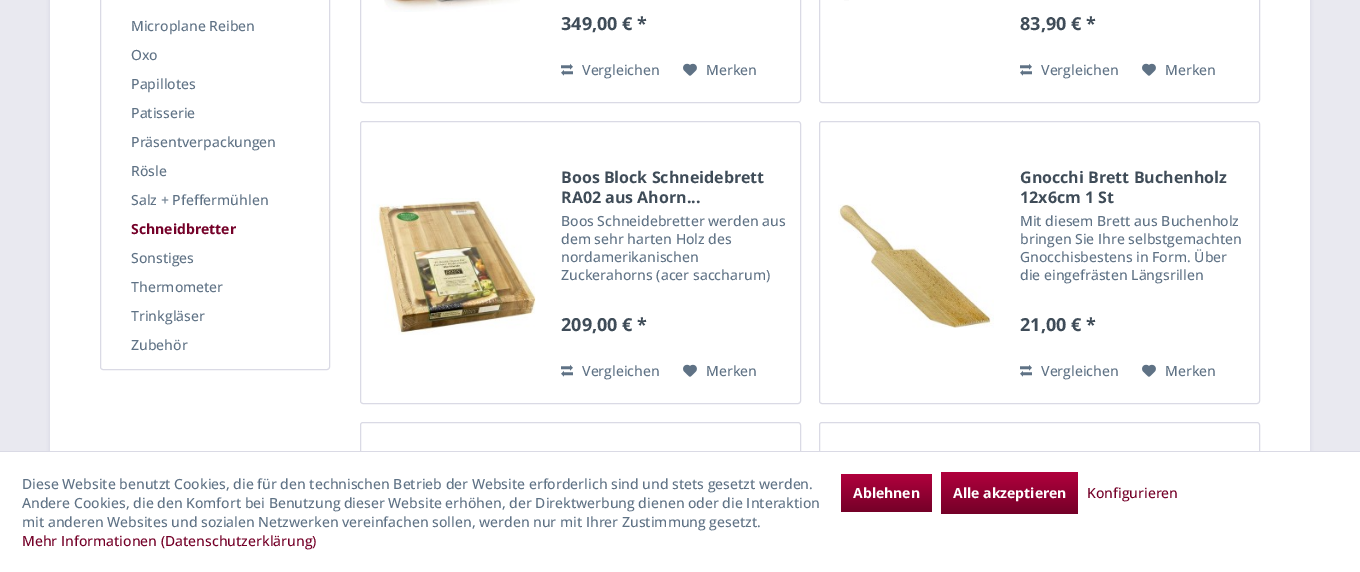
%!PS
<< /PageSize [1360 572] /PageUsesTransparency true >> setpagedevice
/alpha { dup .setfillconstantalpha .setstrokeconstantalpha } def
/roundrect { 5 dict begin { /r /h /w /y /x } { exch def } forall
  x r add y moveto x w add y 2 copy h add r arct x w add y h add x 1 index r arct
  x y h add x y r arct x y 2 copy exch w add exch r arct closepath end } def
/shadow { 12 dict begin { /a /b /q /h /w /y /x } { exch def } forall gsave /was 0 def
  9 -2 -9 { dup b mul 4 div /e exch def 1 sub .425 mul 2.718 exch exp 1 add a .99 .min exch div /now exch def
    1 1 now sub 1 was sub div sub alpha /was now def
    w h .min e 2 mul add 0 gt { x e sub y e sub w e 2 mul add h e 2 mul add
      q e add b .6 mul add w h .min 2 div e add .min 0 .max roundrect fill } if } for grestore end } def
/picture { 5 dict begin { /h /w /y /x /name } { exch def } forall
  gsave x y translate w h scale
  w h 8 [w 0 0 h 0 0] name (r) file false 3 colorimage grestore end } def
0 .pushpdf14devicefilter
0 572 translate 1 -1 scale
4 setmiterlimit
0.914 0.914 0.941 setrgbcolor
0 0 1360 572 rectfill
0.855 0.855 0.898 setrgbcolor
49 -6 1262 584 0 2 1 shadow
1 setgray
50 0 1260 451 rectfill
0.855 0.855 0.898 setrgbcolor
100.5 -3.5 229 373 2.5 roundrect stroke
/OpenSans-Medium [14 0 0 -14 0 0] selectfont
0.373 0.447 0.522 setrgbcolor
131 31 moveto (Microplane Reiben) show
131 60 moveto (Oxo) show
131 89 moveto (Papillotes) show
131 118 moveto (Patisserie) show
131 147 moveto (Präsentverpackungen) show
131 176 moveto (Rösle) show
131 205 moveto (Salz + Pfeffermühlen) show
/OpenSans-Bold [14 0 0 -14 0 0] selectfont
0.455 0 0.157 setrgbcolor
131 234 moveto (Schneidbretter) show
/OpenSans-Medium [14 0 0 -14 0 0] selectfont
0.373 0.447 0.522 setrgbcolor
131 263 moveto (Sonstiges) show
131 292 moveto (Thermometer) show
131 321 moveto (Trinkgläser) show
131 350 moveto (Zubehör) show
0.855 0.855 0.898 setrgbcolor
360.5 -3.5 440 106 2.5 roundrect stroke
(img1.rgb) 384 0 136 12 picture
/OpenSans-Bold [18 0 0 -18 0 0] selectfont
0.247 0.298 0.345 setrgbcolor
561 30 moveto (349,00 € *) show
(img2.rgb) 561 63 12 13 picture
/OpenSans-Medium [14 0 0 -14 0 0] selectfont
0.373 0.447 0.522 setrgbcolor
582 75 moveto (Vergleichen) show
(img3.rgb) 683 63 14 13 picture
706 75 moveto (Merken) show
0.855 0.855 0.898 setrgbcolor
819.5 -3.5 440 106 2.5 roundrect stroke
0.98 setgray
844 0 5 1 rectfill
/OpenSans-Bold [18 0 0 -18 0 0] selectfont
0.247 0.298 0.345 setrgbcolor
1020 30 moveto (83,90 € *) show
(img2.rgb) 1020 63 12 13 picture
/OpenSans-Medium [14 0 0 -14 0 0] selectfont
0.373 0.447 0.522 setrgbcolor
1041 75 moveto (Vergleichen) show
(img3.rgb) 1142 63 14 13 picture
1165 75 moveto (Merken) show
0.855 0.855 0.898 setrgbcolor
360.5 121.5 440 282 2.5 roundrect stroke
/OpenSans-Bold [16 0 0 -16 0 0] selectfont
0.247 0.298 0.345 setrgbcolor
561 183 moveto (Boos Block Schneidebrett) show
561 203 moveto (RA02 aus Ahorn...) show
(img4.rgb) 371 198 165 137 picture
/OpenSans-Medium [14 0 0 -14 0 0] selectfont
0.373 0.447 0.522 setrgbcolor
561 226 moveto (Boos Schneidebretter werden aus) show
561 244 moveto (dem sehr harten Holz des) show
561 262 moveto (nordamerikanischen) show
561 280 moveto (Zuckerahorns \(acer saccharum\)) show
/OpenSans-Bold [18 0 0 -18 0 0] selectfont
0.247 0.298 0.345 setrgbcolor
561 331 moveto (209,00 € *) show
(img2.rgb) 561 364 12 13 picture
/OpenSans-Medium [14 0 0 -14 0 0] selectfont
0.373 0.447 0.522 setrgbcolor
582 376 moveto (Vergleichen) show
(img3.rgb) 683 364 14 13 picture
706 376 moveto (Merken) show
0.855 0.855 0.898 setrgbcolor
819.5 121.5 440 282 2.5 roundrect stroke
/OpenSans-Bold [16 0 0 -16 0 0] selectfont
0.247 0.298 0.345 setrgbcolor
1020 183 moveto (Gnocchi Brett Buchenholz) show
1020 203 moveto (12x6cm 1 St) show
(img5.rgb) 838 204 156 124 picture
/OpenSans-Medium [14 0 0 -14 0 0] selectfont
0.373 0.447 0.522 setrgbcolor
1020 226 moveto (Mit diesem Brett aus Buchenholz) show
1020 244 moveto (bringen Sie Ihre selbstgemachten) show
1020 262 moveto (Gnocchisbestens in Form. Über) show
1020 280 moveto (die eingefrästen Längsrillen) show
/OpenSans-Bold [18 0 0 -18 0 0] selectfont
0.247 0.298 0.345 setrgbcolor
1020 331 moveto (21,00 € *) show
(img2.rgb) 1020 364 12 13 picture
/OpenSans-Medium [14 0 0 -14 0 0] selectfont
0.373 0.447 0.522 setrgbcolor
1041 376 moveto (Vergleichen) show
(img3.rgb) 1142 364 14 13 picture
1165 376 moveto (Merken) show
0.855 0.855 0.898 setrgbcolor
360.5 422.5 440 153 2.5 roundrect stroke
819.5 422.5 440 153 2.5 roundrect stroke
1 setgray
0 452 1360 120 rectfill
0.855 0.855 0.898 setrgbcolor
0 451 1360 1 rectfill
0.373 0.447 0.522 setrgbcolor
22 489 moveto (Diese Website benutzt Cookies, die für den technischen Betrieb der Website erforderlich sind und stets gesetzt werden.) show
22 508 moveto (Andere Cookies, die den Komfort bei Benutzung dieser Website erhöhen, der Direktwerbung dienen oder die Interaktion) show
22 527 moveto (mit anderen Websites und sozialen Netzwerken vereinfachen sollen, werden nur mit Ihrer Zustimmung gesetzt.) show
0.455 0 0.157 setrgbcolor
22 546 moveto (Mehr Informationen \(Datenschutzerklärung\)) show
gsave 841 474 91 38 3 roundrect clip newpath
<< /ShadingType 2 /ColorSpace /DeviceRGB /Coords [887 474 887 512] /Extend [true true] /Function << /FunctionType 2 /Domain [0 1] /C0 [0.694 0 0.239] /C1 [0.455 0 0.157] /N 1 >> >> shfill grestore
/OpenSans-Bold [14 0 0 -14 0 0] selectfont
1 setgray
853 498 moveto (Ablehnen) show
gsave 941 472 137 42 3 roundrect clip newpath
<< /ShadingType 2 /ColorSpace /DeviceRGB /Coords [1010 472 1010 514] /Extend [true true] /Function << /FunctionType 2 /Domain [0 1] /C0 [0.694 0 0.239] /C1 [0.455 0 0.157] /N 1 >> >> shfill grestore
953 498 moveto (Alle akzeptieren) show
/OpenSans-Medium [14 0 0 -14 0 0] selectfont
0.455 0 0.157 setrgbcolor
1087 498 moveto (Konfigurieren) show
.poppdf14devicefilter showpage
